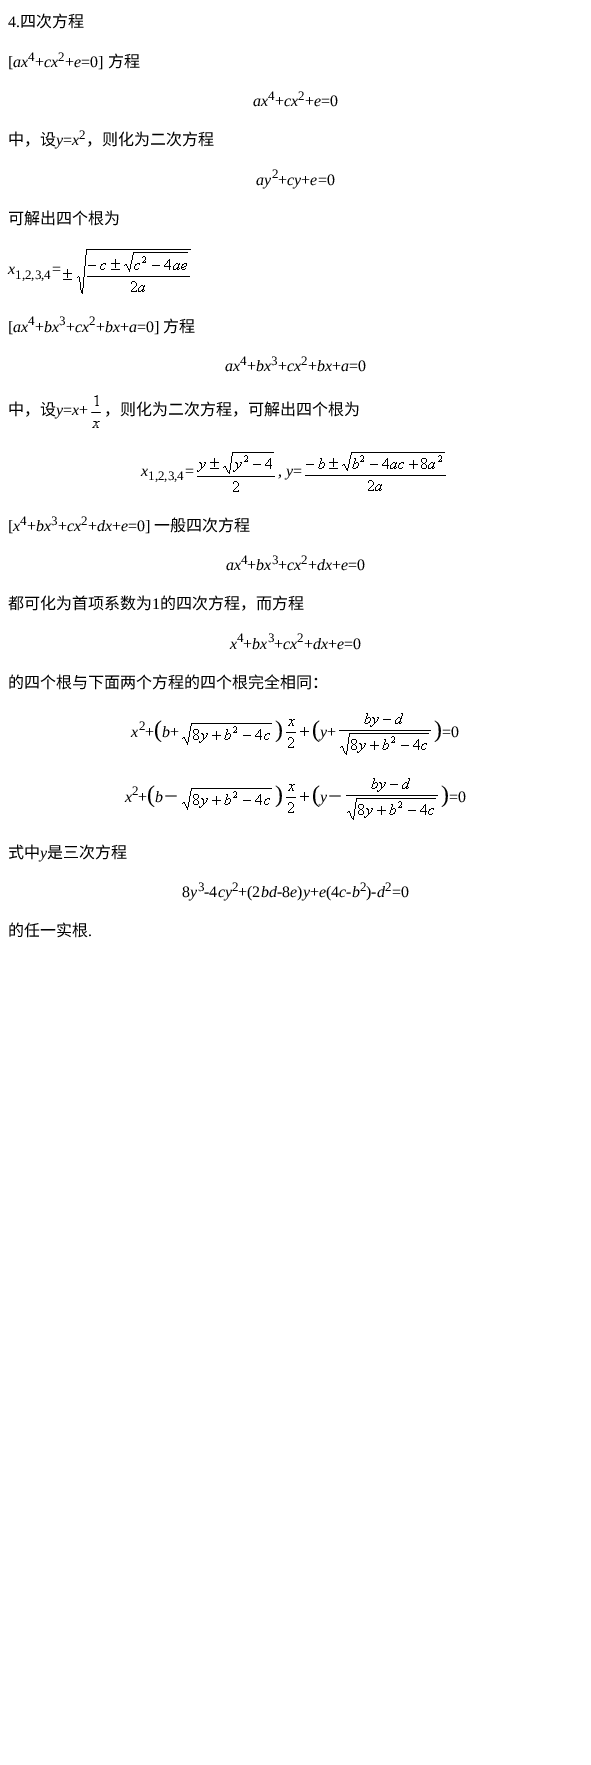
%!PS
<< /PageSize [591 1765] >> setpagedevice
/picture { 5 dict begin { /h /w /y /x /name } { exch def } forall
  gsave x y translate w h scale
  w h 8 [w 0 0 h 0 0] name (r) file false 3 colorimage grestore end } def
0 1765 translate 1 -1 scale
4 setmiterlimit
1 setgray
0 0 591 1765 rectfill
/LiberationSerif-Regular [16 0 0 -16 0 0] selectfont
0 setgray
8 27 moveto (4.) show
/NotoSansCJKSC-Regular [16 0 0 -16 0 0] selectfont
20 27 moveto (四次方程) show
/LiberationSerif-Regular [16 0 0 -16 0 0] selectfont
8 67 moveto ([) show
/LiberationSerif-Italic [16 0 0 -16 0 0] selectfont
13 67 moveto (ax) show
/LiberationSerif-Regular [13 0 0 -13 0 0] selectfont
28 61 moveto (4) show
/LiberationSerif-Regular [16 0 0 -16 0 0] selectfont
35 67 moveto (+) show
/LiberationSerif-Italic [16 0 0 -16 0 0] selectfont
44 67 moveto (cx) show
/LiberationSerif-Regular [13 0 0 -13 0 0] selectfont
58 61 moveto (2) show
/LiberationSerif-Regular [16 0 0 -16 0 0] selectfont
65 67 moveto (+) show
/LiberationSerif-Italic [16 0 0 -16 0 0] selectfont
74 67 moveto (e) show
/LiberationSerif-Regular [16 0 0 -16 0 0] selectfont
81 67 moveto (=0]) show
/NotoSansCJKSC-Regular [16 0 0 -16 0 0] selectfont
108 67 moveto (方程) show
/LiberationSerif-Italic [16 0 0 -16 0 0] selectfont
253 106 moveto (ax) show
/LiberationSerif-Regular [13 0 0 -13 0 0] selectfont
268 100 moveto (4) show
/LiberationSerif-Regular [16 0 0 -16 0 0] selectfont
275 106 moveto (+) show
/LiberationSerif-Italic [16 0 0 -16 0 0] selectfont
284 106 moveto (cx) show
/LiberationSerif-Regular [13 0 0 -13 0 0] selectfont
298 100 moveto (2) show
/LiberationSerif-Regular [16 0 0 -16 0 0] selectfont
305 106 moveto (+) show
/LiberationSerif-Italic [16 0 0 -16 0 0] selectfont
314 106 moveto (e) show
/LiberationSerif-Regular [16 0 0 -16 0 0] selectfont
321 106 moveto (=0) show
/NotoSansCJKSC-Regular [16 0 0 -16 0 0] selectfont
8 145 moveto (中，设) show
/LiberationSerif-Italic [16 0 0 -16 0 0] selectfont
56 145 moveto (y) show
/LiberationSerif-Regular [16 0 0 -16 0 0] selectfont
63 145 moveto (=) show
/LiberationSerif-Italic [16 0 0 -16 0 0] selectfont
72 145 moveto (x) show
/LiberationSerif-Regular [13 0 0 -13 0 0] selectfont
79 139 moveto (2) show
/NotoSansCJKSC-Regular [16 0 0 -16 0 0] selectfont
86 145 moveto (，则化为二次方程) show
/LiberationSerif-Italic [16 0 0 -16 0 0] selectfont
256 185 moveto (ay) show
/LiberationSerif-Regular [13 0 0 -13 0 0] selectfont
272 178 moveto (2) show
/LiberationSerif-Regular [16 0 0 -16 0 0] selectfont
278 185 moveto (+) show
/LiberationSerif-Italic [16 0 0 -16 0 0] selectfont
287 185 moveto (cy) show
/LiberationSerif-Regular [16 0 0 -16 0 0] selectfont
301 185 moveto (+) show
/LiberationSerif-Italic [16 0 0 -16 0 0] selectfont
310 185 moveto (e) show
/LiberationSerif-Regular [16 0 0 -16 0 0] selectfont
318 185 moveto (=0) show
/NotoSansCJKSC-Regular [16 0 0 -16 0 0] selectfont
8 224 moveto (可解出四个根为) show
/LiberationSerif-Italic [16 0 0 -16 0 0] selectfont
8 274 moveto (x) show
/LiberationSerif-Regular [16 0 0 -16 0 0] selectfont
52 274 moveto (=) show
(img1.rgb) 63 249 128 45 picture
/LiberationSerif-Regular [13 0 0 -13 0 0] selectfont
15 279 moveto (1,2,3,4) show
/LiberationSerif-Regular [16 0 0 -16 0 0] selectfont
8 332 moveto ([) show
/LiberationSerif-Italic [16 0 0 -16 0 0] selectfont
13 332 moveto (ax) show
/LiberationSerif-Regular [13 0 0 -13 0 0] selectfont
28 325 moveto (4) show
/LiberationSerif-Regular [16 0 0 -16 0 0] selectfont
35 332 moveto (+) show
/LiberationSerif-Italic [16 0 0 -16 0 0] selectfont
44 332 moveto (bx) show
/LiberationSerif-Regular [13 0 0 -13 0 0] selectfont
59 325 moveto (3) show
/LiberationSerif-Regular [16 0 0 -16 0 0] selectfont
66 332 moveto (+) show
/LiberationSerif-Italic [16 0 0 -16 0 0] selectfont
75 332 moveto (cx) show
/LiberationSerif-Regular [13 0 0 -13 0 0] selectfont
89 325 moveto (2) show
/LiberationSerif-Regular [16 0 0 -16 0 0] selectfont
96 332 moveto (+) show
/LiberationSerif-Italic [16 0 0 -16 0 0] selectfont
105 332 moveto (bx) show
/LiberationSerif-Regular [16 0 0 -16 0 0] selectfont
120 332 moveto (+) show
/LiberationSerif-Italic [16 0 0 -16 0 0] selectfont
129 332 moveto (a) show
/LiberationSerif-Regular [16 0 0 -16 0 0] selectfont
137 332 moveto (=0]) show
/NotoSansCJKSC-Regular [16 0 0 -16 0 0] selectfont
163 332 moveto (方程) show
/LiberationSerif-Italic [16 0 0 -16 0 0] selectfont
225 371 moveto (ax) show
/LiberationSerif-Regular [13 0 0 -13 0 0] selectfont
240 365 moveto (4) show
/LiberationSerif-Regular [16 0 0 -16 0 0] selectfont
247 371 moveto (+) show
/LiberationSerif-Italic [16 0 0 -16 0 0] selectfont
256 371 moveto (bx) show
/LiberationSerif-Regular [13 0 0 -13 0 0] selectfont
271 365 moveto (3) show
/LiberationSerif-Regular [16 0 0 -16 0 0] selectfont
278 371 moveto (+) show
/LiberationSerif-Italic [16 0 0 -16 0 0] selectfont
287 371 moveto (cx) show
/LiberationSerif-Regular [13 0 0 -13 0 0] selectfont
301 365 moveto (2) show
/LiberationSerif-Regular [16 0 0 -16 0 0] selectfont
308 371 moveto (+) show
/LiberationSerif-Italic [16 0 0 -16 0 0] selectfont
317 371 moveto (bx) show
/LiberationSerif-Regular [16 0 0 -16 0 0] selectfont
332 371 moveto (+) show
/LiberationSerif-Italic [16 0 0 -16 0 0] selectfont
341 371 moveto (a) show
/LiberationSerif-Regular [16 0 0 -16 0 0] selectfont
349 371 moveto (=0) show
/NotoSansCJKSC-Regular [16 0 0 -16 0 0] selectfont
8 415 moveto (中，设) show
/LiberationSerif-Italic [16 0 0 -16 0 0] selectfont
56 415 moveto (y) show
/LiberationSerif-Regular [16 0 0 -16 0 0] selectfont
63 415 moveto (=) show
/LiberationSerif-Italic [16 0 0 -16 0 0] selectfont
72 415 moveto (x) show
/LiberationSerif-Regular [16 0 0 -16 0 0] selectfont
79 415 moveto (+) show
(img2.rgb) 91 395 10 33 picture
/NotoSansCJKSC-Regular [16 0 0 -16 0 0] selectfont
104 415 moveto (，则化为二次方程，可解出四个根为) show
/LiberationSerif-Italic [16 0 0 -16 0 0] selectfont
141 476 moveto (x) show
/LiberationSerif-Regular [16 0 0 -16 0 0] selectfont
185 476 moveto (=) show
(img3.rgb) 197 452 78 40 picture
/LiberationSerif-Italic [16 0 0 -16 0 0] selectfont
286 476 moveto (y) show
/LiberationSerif-Regular [16 0 0 -16 0 0] selectfont
293 476 moveto (=) show
(img4.rgb) 305 452 141 39 picture
/LiberationSerif-Regular [13 0 0 -13 0 0] selectfont
148 480 moveto (1,2,3,4) show
/LiberationSerif-Regular [16 0 0 -16 0 0] selectfont
278 476 moveto (,) show
8 531 moveto ([) show
/LiberationSerif-Italic [16 0 0 -16 0 0] selectfont
13 531 moveto (x) show
/LiberationSerif-Regular [13 0 0 -13 0 0] selectfont
20 525 moveto (4) show
/LiberationSerif-Regular [16 0 0 -16 0 0] selectfont
27 531 moveto (+) show
/LiberationSerif-Italic [16 0 0 -16 0 0] selectfont
36 531 moveto (bx) show
/LiberationSerif-Regular [13 0 0 -13 0 0] selectfont
51 525 moveto (3) show
/LiberationSerif-Regular [16 0 0 -16 0 0] selectfont
58 531 moveto (+) show
/LiberationSerif-Italic [16 0 0 -16 0 0] selectfont
67 531 moveto (cx) show
/LiberationSerif-Regular [13 0 0 -13 0 0] selectfont
81 525 moveto (2) show
/LiberationSerif-Regular [16 0 0 -16 0 0] selectfont
88 531 moveto (+) show
/LiberationSerif-Italic [16 0 0 -16 0 0] selectfont
97 531 moveto (dx) show
/LiberationSerif-Regular [16 0 0 -16 0 0] selectfont
112 531 moveto (+) show
/LiberationSerif-Italic [16 0 0 -16 0 0] selectfont
121 531 moveto (e) show
/LiberationSerif-Regular [16 0 0 -16 0 0] selectfont
128 531 moveto (=0]) show
/NotoSansCJKSC-Regular [16 0 0 -16 0 0] selectfont
154 531 moveto (一般四次方程) show
/LiberationSerif-Italic [16 0 0 -16 0 0] selectfont
226 570 moveto (ax) show
/LiberationSerif-Regular [13 0 0 -13 0 0] selectfont
241 564 moveto (4) show
/LiberationSerif-Regular [16 0 0 -16 0 0] selectfont
247 570 moveto (+) show
/LiberationSerif-Italic [16 0 0 -16 0 0] selectfont
256 570 moveto (bx) show
/LiberationSerif-Regular [13 0 0 -13 0 0] selectfont
272 564 moveto (3) show
/LiberationSerif-Regular [16 0 0 -16 0 0] selectfont
278 570 moveto (+) show
/LiberationSerif-Italic [16 0 0 -16 0 0] selectfont
287 570 moveto (cx) show
/LiberationSerif-Regular [13 0 0 -13 0 0] selectfont
301 564 moveto (2) show
/LiberationSerif-Regular [16 0 0 -16 0 0] selectfont
308 570 moveto (+) show
/LiberationSerif-Italic [16 0 0 -16 0 0] selectfont
317 570 moveto (dx) show
/LiberationSerif-Regular [16 0 0 -16 0 0] selectfont
332 570 moveto (+) show
/LiberationSerif-Italic [16 0 0 -16 0 0] selectfont
341 570 moveto (e) show
/LiberationSerif-Regular [16 0 0 -16 0 0] selectfont
348 570 moveto (=0) show
/NotoSansCJKSC-Regular [16 0 0 -16 0 0] selectfont
8 609 moveto (都可化为首项系数为) show
/LiberationSerif-Regular [16 0 0 -16 0 0] selectfont
152 609 moveto (1) show
/NotoSansCJKSC-Regular [16 0 0 -16 0 0] selectfont
160 609 moveto (的四次方程，而方程) show
/LiberationSerif-Italic [16 0 0 -16 0 0] selectfont
230 649 moveto (x) show
/LiberationSerif-Regular [13 0 0 -13 0 0] selectfont
237 642 moveto (4) show
/LiberationSerif-Regular [16 0 0 -16 0 0] selectfont
243 649 moveto (+) show
/LiberationSerif-Italic [16 0 0 -16 0 0] selectfont
252 649 moveto (bx) show
/LiberationSerif-Regular [13 0 0 -13 0 0] selectfont
268 642 moveto (3) show
/LiberationSerif-Regular [16 0 0 -16 0 0] selectfont
274 649 moveto (+) show
/LiberationSerif-Italic [16 0 0 -16 0 0] selectfont
283 649 moveto (cx) show
/LiberationSerif-Regular [13 0 0 -13 0 0] selectfont
297 642 moveto (2) show
/LiberationSerif-Regular [16 0 0 -16 0 0] selectfont
304 649 moveto (+) show
/LiberationSerif-Italic [16 0 0 -16 0 0] selectfont
313 649 moveto (dx) show
/LiberationSerif-Regular [16 0 0 -16 0 0] selectfont
328 649 moveto (+) show
/LiberationSerif-Italic [16 0 0 -16 0 0] selectfont
337 649 moveto (e) show
/LiberationSerif-Regular [16 0 0 -16 0 0] selectfont
344 649 moveto (=0) show
/NotoSansCJKSC-Regular [16 0 0 -16 0 0] selectfont
8 688 moveto (的四个根与下面两个方程的四个根完全相同：) show
/LiberationSerif-Italic [16 0 0 -16 0 0] selectfont
131 737 moveto (x) show
/LiberationSerif-Regular [13 0 0 -13 0 0] selectfont
139 730 moveto (2) show
/LiberationSerif-Regular [16 0 0 -16 0 0] selectfont
145 737 moveto (+) show
/LiberationSerif-Regular [24 0 0 -24 0 0] selectfont
154 737 moveto (\() show
/LiberationSerif-Italic [16 0 0 -16 0 0] selectfont
162 737 moveto (b) show
/LiberationSerif-Regular [16 0 0 -16 0 0] selectfont
170 737 moveto (+) show
(img5.rgb) 182 723 90 22 picture
/LiberationSerif-Regular [24 0 0 -24 0 0] selectfont
275 737 moveto (\)) show
(img6.rgb) 286 719 23 29 picture
312 737 moveto (\() show
/LiberationSerif-Italic [16 0 0 -16 0 0] selectfont
320 737 moveto (y) show
/LiberationSerif-Regular [16 0 0 -16 0 0] selectfont
327 737 moveto (+) show
(img7.rgb) 339 713 92 42 picture
/LiberationSerif-Regular [24 0 0 -24 0 0] selectfont
434 737 moveto (\)) show
/LiberationSerif-Regular [16 0 0 -16 0 0] selectfont
442 737 moveto (=0) show
/LiberationSerif-Italic [16 0 0 -16 0 0] selectfont
125 802 moveto (x) show
/LiberationSerif-Regular [13 0 0 -13 0 0] selectfont
132 795 moveto (2) show
/LiberationSerif-Regular [16 0 0 -16 0 0] selectfont
138 802 moveto (+) show
/LiberationSerif-Regular [24 0 0 -24 0 0] selectfont
147 802 moveto (\() show
/LiberationSerif-Italic [16 0 0 -16 0 0] selectfont
155 802 moveto (b) show
/NotoSansCJKSC-Regular [16 0 0 -16 0 0] selectfont
163 802 moveto (－) show
(img5.rgb) 182 788 90 22 picture
/LiberationSerif-Regular [24 0 0 -24 0 0] selectfont
275 802 moveto (\)) show
(img6.rgb) 286 784 23 29 picture
312 802 moveto (\() show
/LiberationSerif-Italic [16 0 0 -16 0 0] selectfont
320 802 moveto (y) show
/NotoSansCJKSC-Regular [16 0 0 -16 0 0] selectfont
327 802 moveto (－) show
(img7.rgb) 346 778 92 42 picture
/LiberationSerif-Regular [24 0 0 -24 0 0] selectfont
441 802 moveto (\)) show
/LiberationSerif-Regular [16 0 0 -16 0 0] selectfont
449 802 moveto (=0) show
/NotoSansCJKSC-Regular [16 0 0 -16 0 0] selectfont
8 858 moveto (式中) show
/LiberationSerif-Italic [16 0 0 -16 0 0] selectfont
40 858 moveto (y) show
/NotoSansCJKSC-Regular [16 0 0 -16 0 0] selectfont
47 858 moveto (是三次方程) show
/LiberationSerif-Regular [16 0 0 -16 0 0] selectfont
182 897 moveto (8) show
/LiberationSerif-Italic [16 0 0 -16 0 0] selectfont
190 897 moveto (y) show
/LiberationSerif-Regular [13 0 0 -13 0 0] selectfont
198 891 moveto (3) show
/LiberationSerif-Regular [16 0 0 -16 0 0] selectfont
204 897 moveto (-4) show
/LiberationSerif-Italic [16 0 0 -16 0 0] selectfont
218 897 moveto (cy) show
/LiberationSerif-Regular [13 0 0 -13 0 0] selectfont
232 891 moveto (2) show
/LiberationSerif-Regular [16 0 0 -16 0 0] selectfont
238 897 moveto (+\(2) show
/LiberationSerif-Italic [16 0 0 -16 0 0] selectfont
261 897 moveto (bd) show
/LiberationSerif-Regular [16 0 0 -16 0 0] selectfont
277 897 moveto (-8) show
/LiberationSerif-Italic [16 0 0 -16 0 0] selectfont
290 897 moveto (e) show
/LiberationSerif-Regular [16 0 0 -16 0 0] selectfont
297 897 moveto (\)) show
/LiberationSerif-Italic [16 0 0 -16 0 0] selectfont
303 897 moveto (y) show
/LiberationSerif-Regular [16 0 0 -16 0 0] selectfont
310 897 moveto (+) show
/LiberationSerif-Italic [16 0 0 -16 0 0] selectfont
319 897 moveto (e) show
/LiberationSerif-Regular [16 0 0 -16 0 0] selectfont
326 897 moveto (\(4) show
/LiberationSerif-Italic [16 0 0 -16 0 0] selectfont
339 897 moveto (c) show
/LiberationSerif-Regular [16 0 0 -16 0 0] selectfont
346 897 moveto (-) show
/LiberationSerif-Italic [16 0 0 -16 0 0] selectfont
352 897 moveto (b) show
/LiberationSerif-Regular [13 0 0 -13 0 0] selectfont
360 891 moveto (2) show
/LiberationSerif-Regular [16 0 0 -16 0 0] selectfont
366 897 moveto (\)-) show
/LiberationSerif-Italic [16 0 0 -16 0 0] selectfont
377 897 moveto (d) show
/LiberationSerif-Regular [13 0 0 -13 0 0] selectfont
385 891 moveto (2) show
/LiberationSerif-Regular [16 0 0 -16 0 0] selectfont
392 897 moveto (=0) show
/NotoSansCJKSC-Regular [16 0 0 -16 0 0] selectfont
8 936 moveto (的任一实根) show
/LiberationSerif-Regular [16 0 0 -16 0 0] selectfont
88 936 moveto (.) show
showpage
